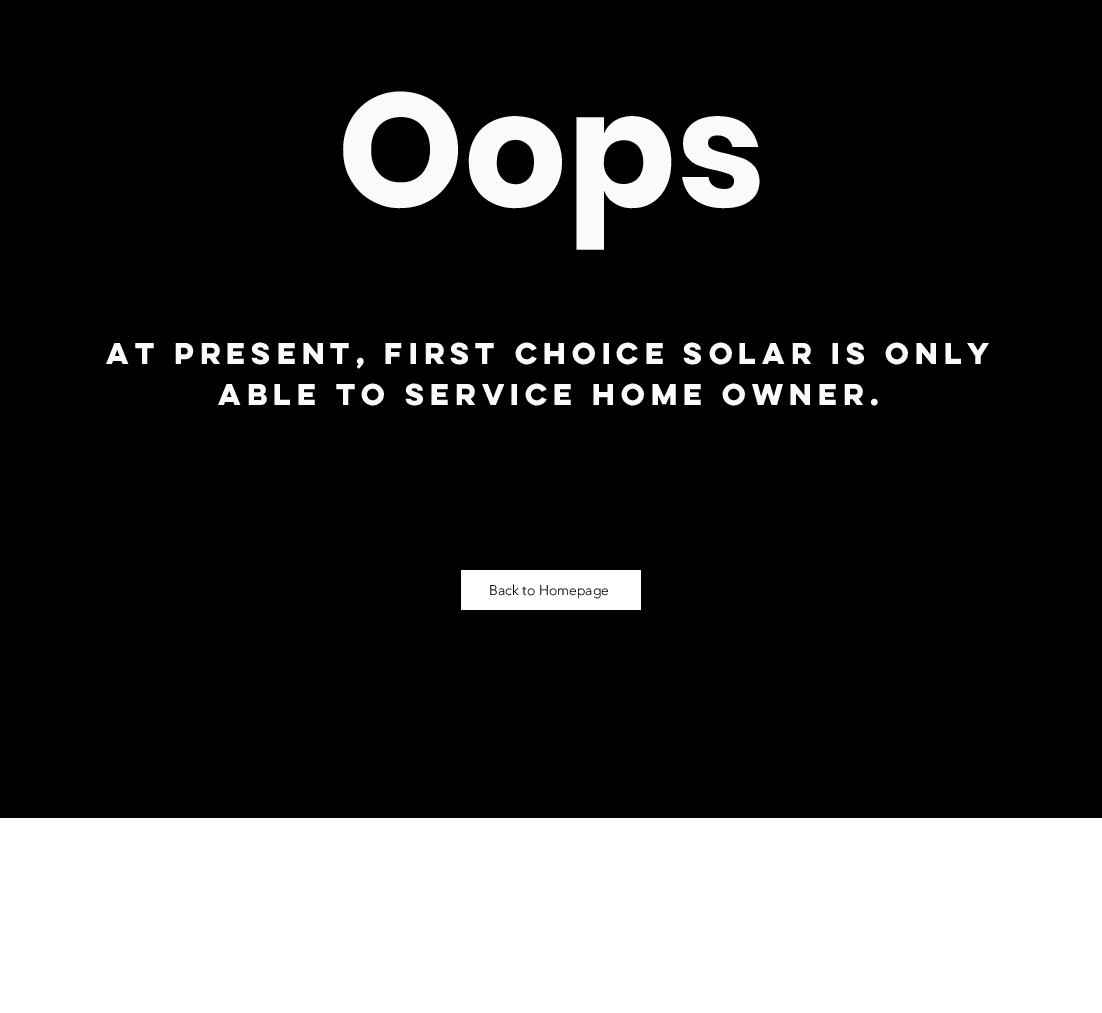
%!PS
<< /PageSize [1102 1013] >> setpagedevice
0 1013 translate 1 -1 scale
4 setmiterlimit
1 setgray
0 0 1102 1013 rectfill
0 setgray
0 0 1102 818 rectfill
/Poppins-Bold [161 0 0 -161 0 0] selectfont
0.98 setgray
337 207 moveto (Oops) show
/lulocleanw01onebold-Bold [27 0 0 -27 0 0] selectfont
106 364 moveto (At Present, first choice solar Is Only) show
218 405 moveto (Able To Service Home Owner.) show
1 setgray
461 570 180 40 rectfill
/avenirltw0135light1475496-Light [14 0 0 -14 0 0] selectfont
0 setgray
489 595 moveto (Back to Homepage) show
showpage
